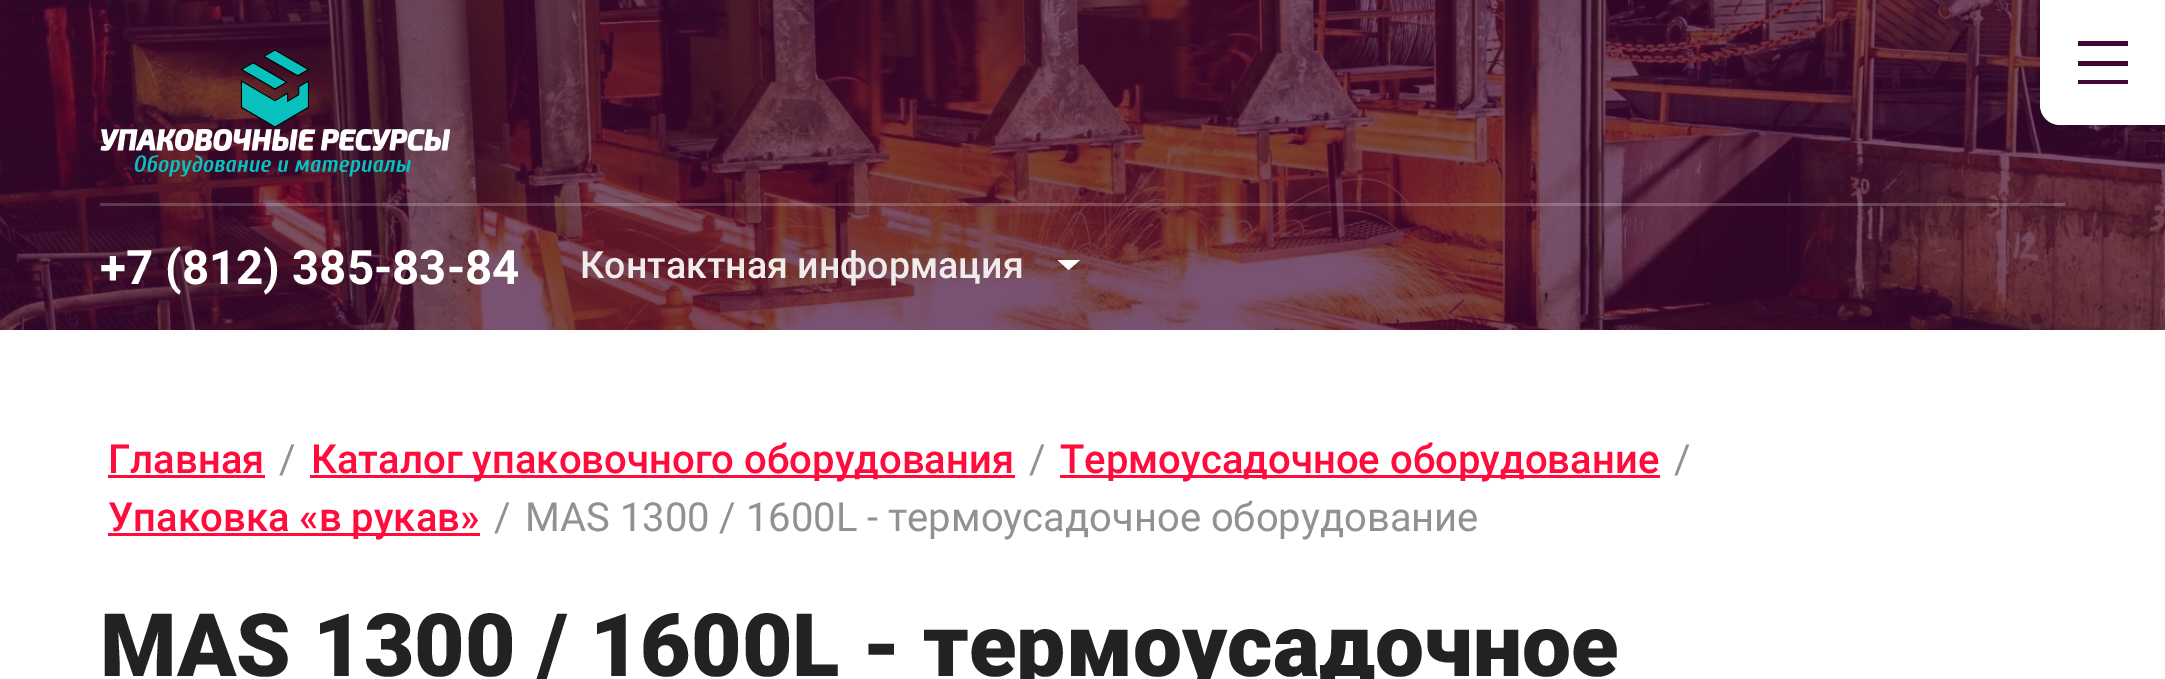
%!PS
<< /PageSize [2165 679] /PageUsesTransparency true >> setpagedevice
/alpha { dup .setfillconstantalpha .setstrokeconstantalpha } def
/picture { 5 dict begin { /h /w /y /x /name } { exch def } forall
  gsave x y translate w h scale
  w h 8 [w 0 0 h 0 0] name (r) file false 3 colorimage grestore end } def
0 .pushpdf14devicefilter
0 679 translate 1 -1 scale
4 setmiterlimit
1 setgray
0 0 2165 679 rectfill
(img1.rgb) 0 0 2165 330 picture
newpath 2040 0 moveto 2165 0 lineto 2165 125 lineto 2060 125 lineto 2049 125 2040 116 2040 105 curveto closepath fill
0.255 0.031 0.212 setrgbcolor
newpath 2078 46 moveto 2078 41 lineto 2128 41 lineto 2128 46 lineto closepath 2128 66 moveto 2078 66 lineto 2078 61 lineto 2128 61 lineto closepath 2128 84 moveto 2078 84 lineto 2078 80 lineto 2128 80 lineto closepath eofill
(img2.rgb) 100 50 350 127 picture
0.2 alpha
1 1 0.996 setrgbcolor
100 203 1965 3 rectfill
/Roboto-Bold [47.5 0 0 -47.5 0 0] selectfont
1 alpha
100 284 moveto (+7 \(812\) 385-83-84) show
/Roboto-Medium [37.5 0 0 -37.5 0 0] selectfont
0.945 0.922 0.922 setrgbcolor
580 278 moveto (Контактная информация) show
1 1 0.996 setrgbcolor
newpath 1068.5 270 moveto 1057.5 260 lineto 1080 260 lineto closepath eofill
/Roboto-Medium [40 0 0 -40 0 0] selectfont
1 0.043 0.235 setrgbcolor
108 473 moveto (Главная) show
108 475 157 3 rectfill
/Roboto-Regular [40 0 0 -40 0 0] selectfont
0.569 setgray
279 473 moveto (/) show
1 0.043 0.235 setrgbcolor
310 475 705 3 rectfill
/Roboto-Medium [40 0 0 -40 0 0] selectfont
311 473 moveto (Каталог упаковочного оборудования) show
/Roboto-Regular [40 0 0 -40 0 0] selectfont
0.569 setgray
1029 473 moveto (/) show
1 0.043 0.235 setrgbcolor
1060 475 600 3 rectfill
/Roboto-Medium [40 0 0 -40 0 0] selectfont
1060 473 moveto (Термоусадочное оборудование) show
/Roboto-Regular [40 0 0 -40 0 0] selectfont
0.569 setgray
1674 473 moveto (/) show
1 0.043 0.235 setrgbcolor
108 533 372 3 rectfill
/Roboto-Medium [40 0 0 -40 0 0] selectfont
108 531 moveto (Упаковка «в рукав») show
/Roboto-Regular [40 0 0 -40 0 0] selectfont
0.569 setgray
494 531 moveto (/) show
525 531 moveto (MAS 1300 / 1600L - термоусадочное оборудование) show
/Roboto-Black [87.5 0 0 -87.5 0 0] selectfont
0.133 setgray
100 676 moveto (MAS 1300 / 1600L - термоусадочное) show
.poppdf14devicefilter showpage
